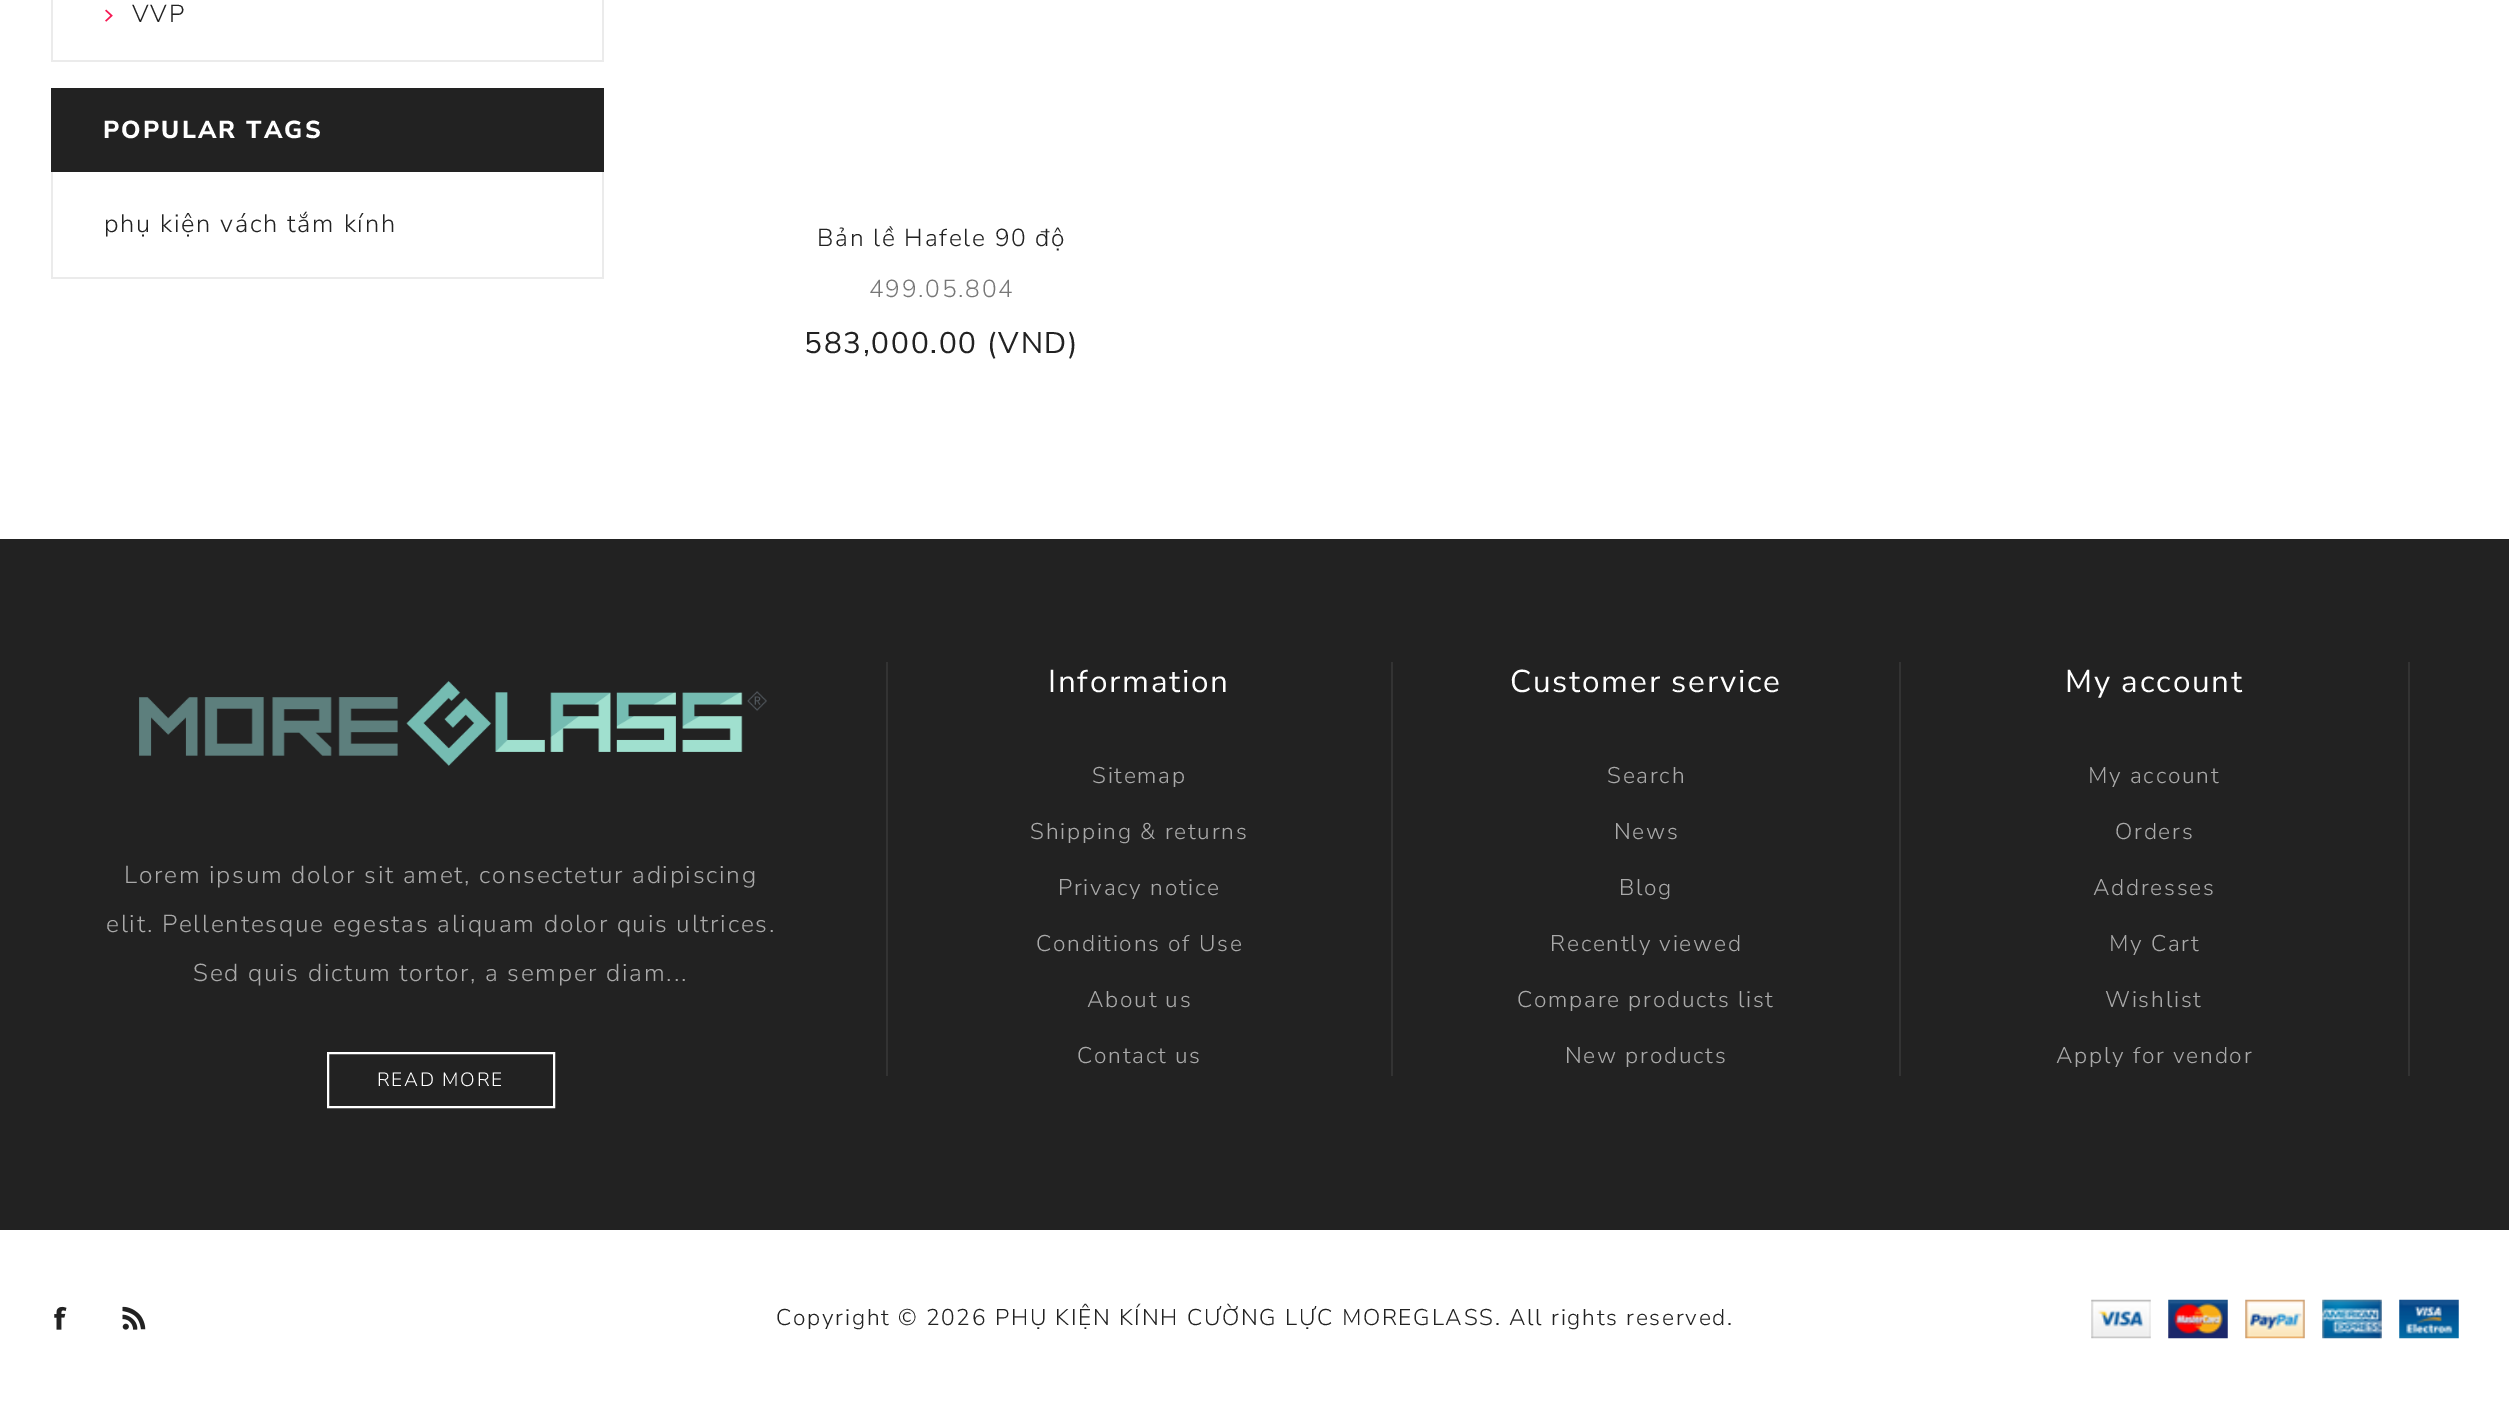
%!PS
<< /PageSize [2509 1407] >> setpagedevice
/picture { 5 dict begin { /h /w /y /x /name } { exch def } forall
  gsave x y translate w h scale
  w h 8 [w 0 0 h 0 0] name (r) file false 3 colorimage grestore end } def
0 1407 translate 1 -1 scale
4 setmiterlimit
1 setgray
0 0 2509 1407 rectfill
0.922 setgray
602 0 2 61 rectfill
51 60 553 2 rectfill
51 0 2 61 rectfill
(img1.rgb) 105 9 8 13 picture
/NunitoSans-Light [24.5 0 0 -24.5 0 0] selectfont
0.133 setgray
132 22 moveto 1.75 0 (VVP) ashow
51 88 553 84 rectfill
/NunitoSans-ExtraBold [24.5 0 0 -24.5 0 0] selectfont
1 setgray
103 138 moveto 2.1 0 (POPULAR TAGS) ashow
0.922 setgray
602 172 2 106 rectfill
51 277 553 2 rectfill
51 172 2 106 rectfill
/NunitoSans-Light [25.25 0 0 -25.25 0 0] selectfont
0.133 setgray
104 232 moveto 1.75 0 (phụ kiện vách tắm kính) ashow
/NunitoSans-Light [24.5 0 0 -24.5 0 0] selectfont
817 246 moveto 1.75 0 (Bản lề Hafele 90 độ) ashow
0.467 setgray
869 297 moveto 1.75 0 (499.05.804) ashow
/NunitoSans-Regular [29.75 0 0 -29.75 0 0] selectfont
0.133 setgray
804 353 moveto 1.75 0 (583,000.00 \(VND\)) ashow
0 539 2509 691 rectfill
(img2.rgb) 139 681 628 85 picture
/NunitoSans-Light [24.5 0 0 -24.5 0 0] selectfont
0.663 setgray
124 883 moveto 1.75 0 (Lorem ipsum dolor sit amet, consectetur adipiscing) ashow
106 932 moveto 1.75 0 (elit. Pellentesque egestas aliquam dolor quis ultrices.) ashow
193 981 moveto 1.75 0 (Sed quis dictum tortor, a semper diam...) ashow
1 setgray
2 setlinewidth
328 1053 226 54 rectstroke
/NunitoSans-Light [19.25 0 0 -19.25 0 0] selectfont
377 1086 moveto 1.75 0 (READ MORE) ashow
0.2 setgray
1391 662 2 414 rectfill
886 662 2 414 rectfill
/NunitoSans-Regular [31.5 0 0 -31.5 0 0] selectfont
1 setgray
1048 692 moveto 1.75 0 (Information) ashow
/NunitoSans-Light [22.75 0 0 -22.75 0 0] selectfont
0.663 setgray
1092 783 moveto 1.75 0 (Sitemap) ashow
1030 839 moveto 1.75 0 (Shipping & returns) ashow
1058 895 moveto 1.75 0 (Privacy notice) ashow
1036 951 moveto 1.75 0 (Conditions of Use) ashow
1087 1007 moveto 1.75 0 (About us) ashow
1077 1063 moveto 1.75 0 (Contact us) ashow
0.2 setgray
1899 662 2 414 rectfill
/NunitoSans-Regular [31.5 0 0 -31.5 0 0] selectfont
1 setgray
1510 692 moveto 1.75 0 (Customer service) ashow
/NunitoSans-Light [22.75 0 0 -22.75 0 0] selectfont
0.663 setgray
1607 783 moveto 1.75 0 (Search) ashow
1614 839 moveto 1.75 0 (News) ashow
1619 895 moveto 1.75 0 (Blog) ashow
1550 951 moveto 1.75 0 (Recently viewed) ashow
1517 1007 moveto 1.75 0 (Compare products list) ashow
1565 1063 moveto 1.75 0 (New products) ashow
0.2 setgray
2408 662 2 414 rectfill
/NunitoSans-Regular [31.5 0 0 -31.5 0 0] selectfont
1 setgray
2065 692 moveto 1.75 0 (My account) ashow
/NunitoSans-Light [22.75 0 0 -22.75 0 0] selectfont
0.663 setgray
2088 783 moveto 1.75 0 (My account) ashow
2115 839 moveto 1.75 0 (Orders) ashow
2093 895 moveto 1.75 0 (Addresses) ashow
2109 951 moveto 1.75 0 (My Cart) ashow
2105 1007 moveto 1.75 0 (Wishlist) ashow
2056 1063 moveto 1.75 0 (Apply for vendor) ashow
(img3.rgb) 54 1306 13 24 picture
(img4.rgb) 122 1306 24 24 picture
0.133 setgray
776 1325 moveto 1.75 0 (Copyright © 2026 PHỤ KIỆN KÍNH CƯỜNG LỰC MOREGLASS. All rights reserved.) ashow
(img5.rgb) 2091 1299 60 40 picture
(img6.rgb) 2168 1299 60 40 picture
(img7.rgb) 2245 1299 60 40 picture
(img8.rgb) 2322 1299 60 40 picture
(img9.rgb) 2399 1299 60 40 picture
showpage
